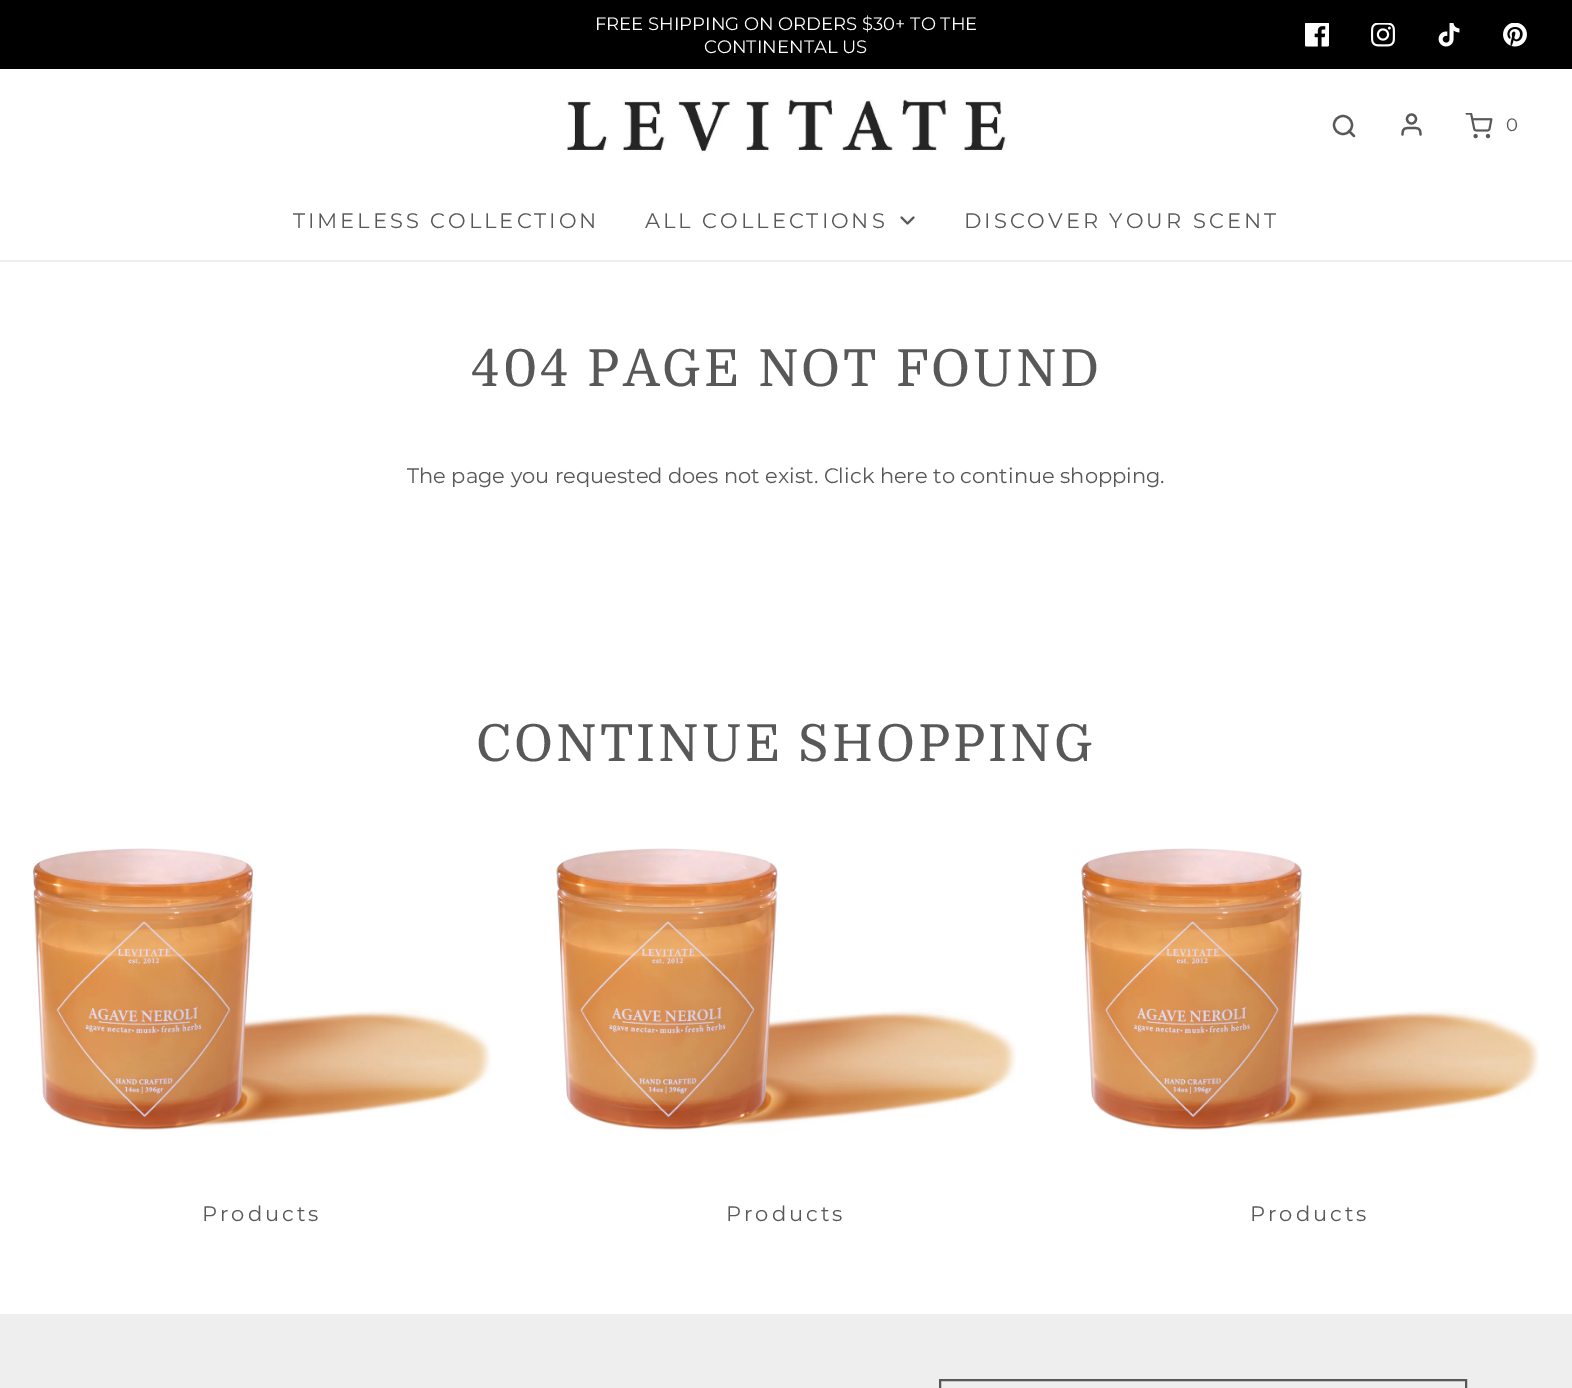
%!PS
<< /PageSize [1572 1388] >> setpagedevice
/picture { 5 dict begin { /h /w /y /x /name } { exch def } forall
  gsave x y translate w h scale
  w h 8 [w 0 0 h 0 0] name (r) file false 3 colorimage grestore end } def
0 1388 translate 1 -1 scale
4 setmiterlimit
1 setgray
0 0 1572 1388 rectfill
0 setgray
0 0 1572 69 rectfill
/Montserrat-Regular [18 0 0 -18 0 0] selectfont
1 setgray
595 30 moveto (FREE SHIPPING ON ORDERS $30+ TO THE) show
704 53 moveto (CONTINENTAL US) show
(img1.rgb) 1305 23 24 24 picture
(img2.rgb) 1371 23 24 24 picture
(img3.rgb) 1438 23 22 24 picture
(img4.rgb) 1503 23 24 24 picture
0.933 setgray
0 260 1572 2 rectfill
(img5.rgb) 567 99 440 54 picture
0.345 setgray
2.2 setlinewidth
newpath 1343 125 9 0 360 arc closepath stroke
1 setlinecap
1 setlinejoin
newpath 1354 136 moveto 1349 131 lineto stroke
newpath 1420.5 134.5 moveto 1420.5 127.5 1418 128 1411.5 128 curveto 1405 128 1402.5 127.5 1402.5 134.5 curveto stroke
0 setlinecap
0 setlinejoin
newpath 1411.5 119 4.5 0 360 arc closepath stroke
(img6.rgb) 1465 113 28 26 picture
1506 131 moveto (0) show
/Montserrat-Regular [21 0 0 -21 0 0] selectfont
293 228 moveto 3 0 (TIMELESS COLLECTION) ashow
645 228 moveto 3 0 (ALL COLLECTIONS) ashow
2 setlinewidth
1 setlinecap
1 setlinejoin
newpath 901.5 217.5 moveto 907.5 223.5 lineto 913.5 217.5 lineto stroke
964 228 moveto 3 0 (DISCOVER YOUR SCENT) ashow
/Domine-Regular [51 0 0 -51 0 0] selectfont
471 386 moveto 3 0 (404 PAGE NOT FOUND) ashow
/Montserrat-Regular [21 0 0 -21 0 0] selectfont
407 483 moveto (The page you requested does not exist. Click here to continue shopping.) show
/Domine-Regular [51 0 0 -51 0 0] selectfont
476 761 moveto 3 0 (CONTINUE SHOPPING) ashow
(img7.rgb) 33 848 458 282 picture
/Montserrat-Regular [21 0 0 -21 0 0] selectfont
202 1221 moveto 3 0 (Products) ashow
(img8.rgb) 556 848 460 282 picture
726 1221 moveto 3 0 (Products) ashow
(img9.rgb) 1081 848 458 282 picture
1250 1221 moveto 3 0 (Products) ashow
0.933 setgray
0 1314 1572 74 rectfill
0.345 setgray
0 setlinecap
0 setlinejoin
940 1380 526 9 rectstroke
showpage
